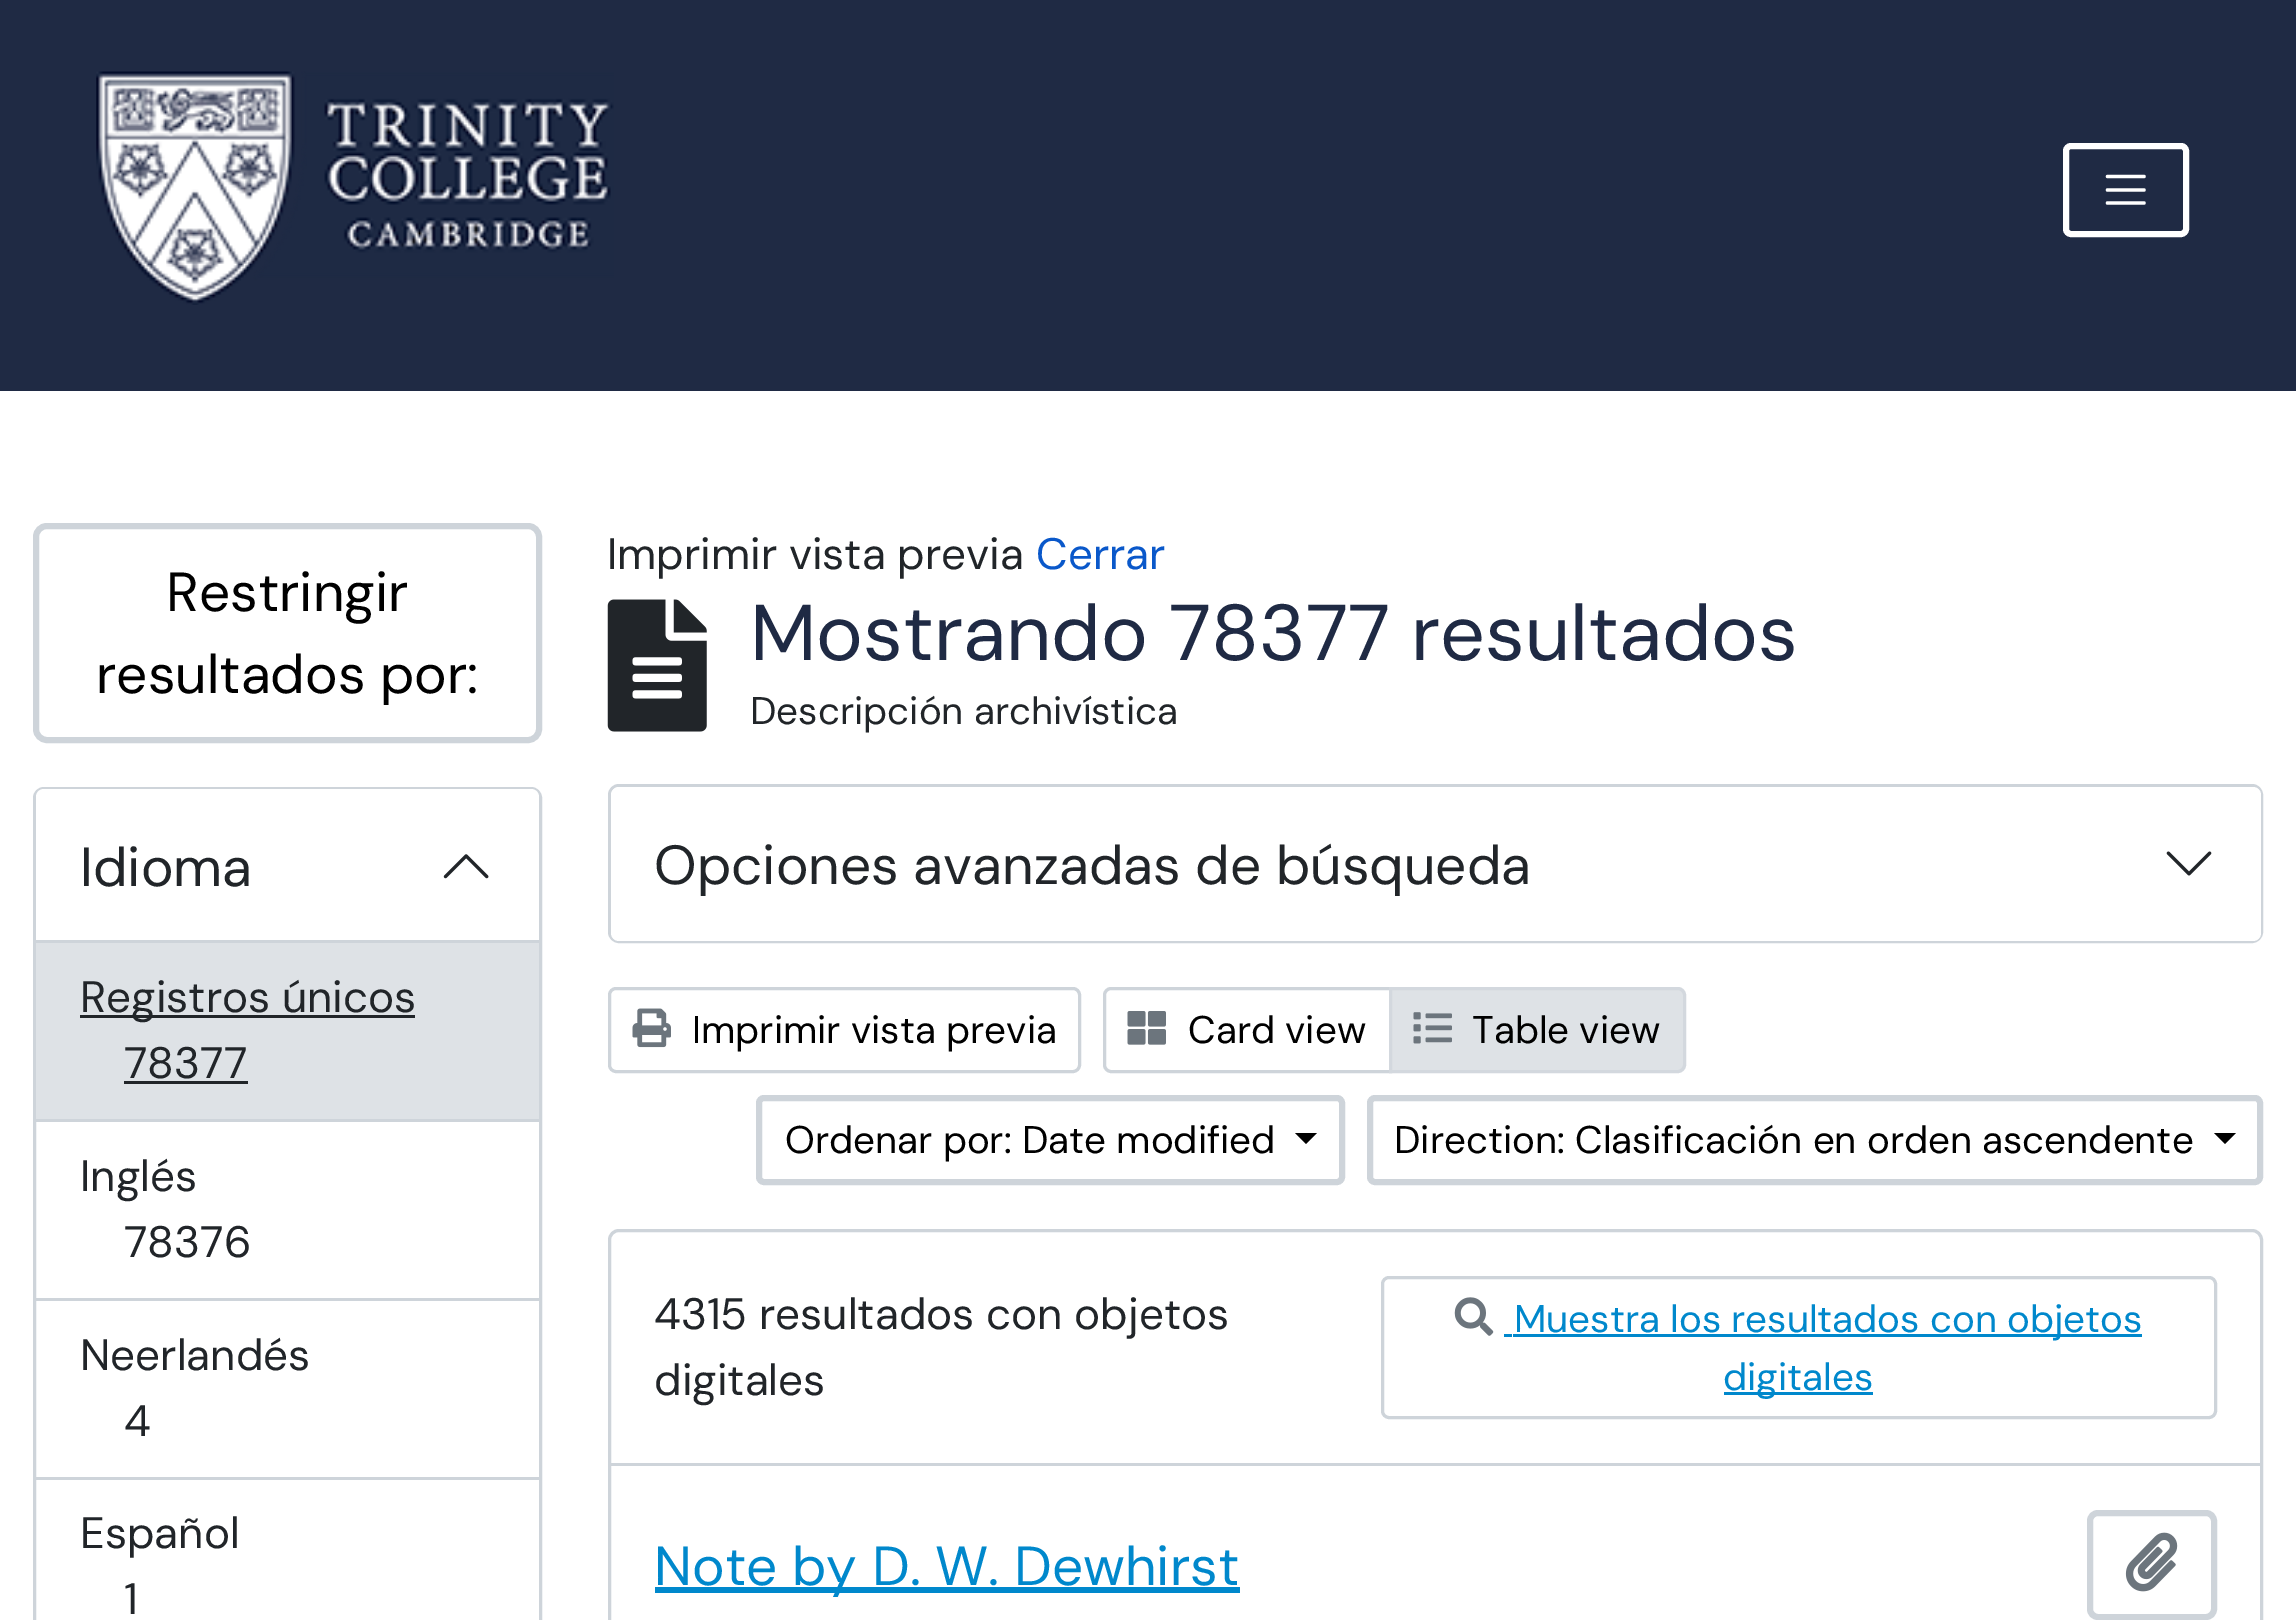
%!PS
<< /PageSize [2296 1620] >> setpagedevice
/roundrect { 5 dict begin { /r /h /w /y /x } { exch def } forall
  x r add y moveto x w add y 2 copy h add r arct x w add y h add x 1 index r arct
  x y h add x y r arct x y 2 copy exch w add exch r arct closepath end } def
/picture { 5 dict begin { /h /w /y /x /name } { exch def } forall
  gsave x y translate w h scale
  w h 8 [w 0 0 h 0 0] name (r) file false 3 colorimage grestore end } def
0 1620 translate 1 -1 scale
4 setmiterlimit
1 setgray
0 0 2296 1620 rectfill
0.122 0.165 0.267 setrgbcolor
0 0 2296 28 rectfill
0 28 2296 363 rectfill
(img1.rgb) 96 71 518 234 picture
1 setgray
6 setlinewidth
2066 146 120 88 5 roundrect stroke
3.3 setlinewidth
1 setlinecap
newpath 2107.5 176.5 moveto 2144 176.5 lineto 2107.5 190 moveto 2144 190 lineto 2107.5 203 moveto 2144 203 lineto stroke
0.808 0.831 0.855 setrgbcolor
6 setlinewidth
0 setlinecap
36 526 503 214 11 roundrect stroke
/DMSans-Regular [55 0 0 -55 0 0] selectfont
0 setgray
166 611 moveto (Restringir) show
96 693 moveto (resultados por:) show
0.808 0.831 0.855 setrgbcolor
3 setlinewidth
34.5 788.5 506 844 9.5 roundrect stroke
1 setgray
newpath 44 789 moveto 531 789 lineto 535.5 789 539 792.5 539 797 curveto 539 943 lineto 36 943 lineto 36 797 lineto 36 792.5 39.5 789 44 789 curveto closepath fill
0.808 0.831 0.855 setrgbcolor
36 940 503 3 rectfill
0.129 0.145 0.161 setrgbcolor
80 886 moveto (Idioma) show
(img2.rgb) 443 854 46 25 picture
0.871 0.886 0.902 setrgbcolor
36 943 503 176 rectfill
0.808 0.831 0.855 setrgbcolor
36 1119 503 3 rectfill
0.129 0.145 0.161 setrgbcolor
80 1015 335 3 rectfill
/DMSans-Regular [44 0 0 -44 0 0] selectfont
80 1012 moveto (Registros únicos) show
124 1078 moveto (78377) show
124 1081 124 3 rectfill
0.808 0.831 0.855 setrgbcolor
36 1298 503 3 rectfill
0.129 0.145 0.161 setrgbcolor
80 1191 moveto (Inglés) show
124 1257 moveto (78376) show
0.808 0.831 0.855 setrgbcolor
36 1477 503 3 rectfill
0.129 0.145 0.161 setrgbcolor
80 1370 moveto (Neerlandés) show
124 1436 moveto (4) show
80 1548 moveto (Español) show
124 1614 moveto (1) show
607 569 moveto (Imprimir vista previa) show
0.039 0.345 0.792 setrgbcolor
1036 569 moveto (Cerrar) show
(img3.rgb) 607 599 100 133 picture
/DMSans-Regular [79 0 0 -79 0 0] selectfont
0.122 0.165 0.267 setrgbcolor
750 660 moveto (Mostrando 78377 resultados) show
/DMSans-Regular [38.5 0 0 -38.5 0 0] selectfont
0.129 0.145 0.161 setrgbcolor
750 724 moveto (Descripción archivística) show
0.808 0.831 0.855 setrgbcolor
609.5 785.5 1652 156 9.5 roundrect stroke
1 setgray
611 787 1650 154 8 roundrect fill
/DMSans-Regular [55 0 0 -55 0 0] selectfont
0.129 0.145 0.161 setrgbcolor
654 884 moveto (Opciones avanzadas de búsqueda) show
(img4.rgb) 2166 851 46 25 picture
0.808 0.831 0.855 setrgbcolor
609.5 988.5 470 83 6.5 roundrect stroke
(img5.rgb) 632 1008 39 40 picture
/DMSans-Regular [38.5 0 0 -38.5 0 0] selectfont
0 setgray
692 1043 moveto (Imprimir vista previa) show
0.808 0.831 0.855 setrgbcolor
newpath 1111 988.5 moveto 1390.5 988.5 lineto 1390.5 1071.5 lineto 1111 1071.5 lineto 1107.5 1071.5 1104.5 1068.5 1104.5 1065 curveto 1104.5 995 lineto 1104.5 991.5 1107.5 988.5 1111 988.5 curveto closepath stroke
(img6.rgb) 1127 1011 39 34 picture
0 setgray
1188 1043 moveto (Card view) show
0.871 0.886 0.902 setrgbcolor
newpath 1390.5 988.5 moveto 1678 988.5 lineto 1681.5 988.5 1684.5 991.5 1684.5 995 curveto 1684.5 1065 lineto 1684.5 1068.5 1681.5 1071.5 1678 1071.5 curveto 1390.5 1071.5 lineto closepath gsave fill grestore
0.827 0.847 0.871 setrgbcolor
stroke
(img7.rgb) 1413 1012 39 32 picture
0 setgray
1472 1043 moveto (Table view) show
0.808 0.831 0.855 setrgbcolor
6 setlinewidth
759 1098 583 84 5 roundrect stroke
0 setgray
785 1153 moveto (Ordenar por: Date modified) show
newpath 1295 1133 moveto 1317 1133 lineto 1306 1144 lineto closepath fill
0.808 0.831 0.855 setrgbcolor
1370 1098 890 84 5 roundrect stroke
0 setgray
1394 1153 moveto (Direction: Clasificación en orden ascendente) show
newpath 2214 1133 moveto 2236 1133 lineto 2225 1144 lineto closepath fill
0.808 0.831 0.855 setrgbcolor
3 setlinewidth
609.5 1230.5 1652 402 9.5 roundrect stroke
611 1463 1650 3 rectfill
/DMSans-Regular [44 0 0 -44 0 0] selectfont
0.129 0.145 0.161 setrgbcolor
654 1329 moveto (4315 resultados con objetos) show
0.808 0.831 0.855 setrgbcolor
1382.5 1277.5 833 140 6.5 roundrect stroke
(img8.rgb) 1454 1297 40 39 picture
0 0.533 0.8 setrgbcolor
1513 1334 629 3 rectfill
/DMSans-Regular [38.5 0 0 -38.5 0 0] selectfont
1514 1332 moveto (Muestra los resultados con objetos) show
1504 1334 8 3 rectfill
1724 1392 149 3 rectfill
1723 1390 moveto (digitales) show
/DMSans-Regular [44 0 0 -44 0 0] selectfont
0.129 0.145 0.161 setrgbcolor
654 1395 moveto (digitales) show
0 0.533 0.8 setrgbcolor
655 1587 585 6 rectfill
/DMSans-Regular [55 0 0 -55 0 0] selectfont
654 1585 moveto (Note by D. W. Dewhirst) show
0.808 0.831 0.855 setrgbcolor
6 setlinewidth
2090 1513 124 104 8 roundrect stroke
(img9.rgb) 2125 1532 53 60 picture
showpage
